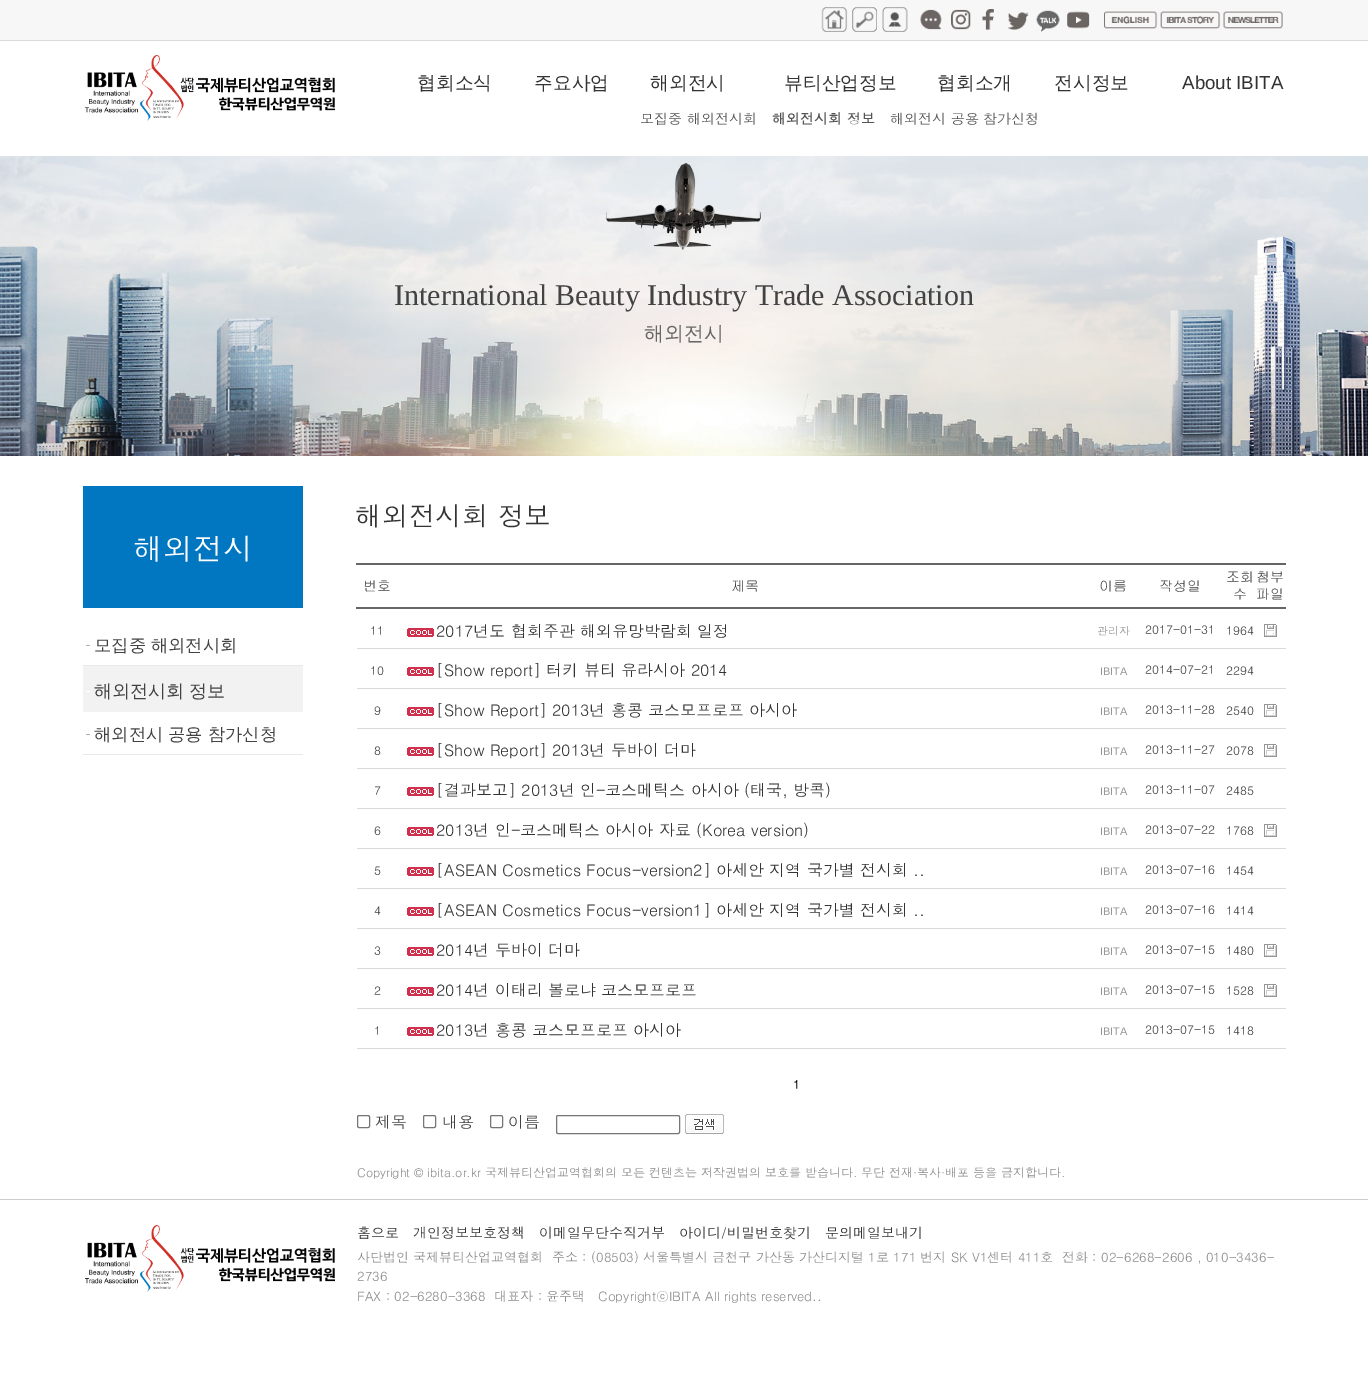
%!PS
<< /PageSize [1368 1378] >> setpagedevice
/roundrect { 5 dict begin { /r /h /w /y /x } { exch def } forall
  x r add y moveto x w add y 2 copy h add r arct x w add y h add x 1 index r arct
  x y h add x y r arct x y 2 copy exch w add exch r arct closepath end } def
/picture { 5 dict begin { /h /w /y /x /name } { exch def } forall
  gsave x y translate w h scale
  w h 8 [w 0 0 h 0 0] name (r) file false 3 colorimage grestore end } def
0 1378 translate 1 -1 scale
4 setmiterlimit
1 setgray
0 0 1368 1378 rectfill
0.969 setgray
0 0 1368 40 rectfill
0.855 setgray
0 40 1368 1 rectfill
(img1.rgb) 821 7 462 25 picture
(img2.rgb) 85 55 250 66 picture
/WenQuanYiZenHei-Medium [18.75 0 0 -18.75 0 0] selectfont
0.2 setgray
417 89 moveto (협회소식) show
534 89 moveto (주요사업) show
650 89 moveto (해외전시) show
784 89 moveto (뷰티산업정보) show
937 89 moveto (협회소개) show
1054 89 moveto (전시정보) show
/LiberationSans-Regular [18.75 0 0 -18.75 0 0] selectfont
1182 89 moveto (About IBITA) show
/Dotum-Regular [14 0 0 -14 0 0] selectfont
0.333 setgray
640 124 moveto (모집중 해외전시회) show
/Dotum-Bold [14 0 0 -14 0 0] selectfont
772 124 moveto (해외전시회 정보) show
/Dotum-Regular [14 0 0 -14 0 0] selectfont
890 124 moveto (해외전시 공용 참가신청) show
(img3.rgb) 0 156 1368 300 picture
/LiberationSerif-Regular [30 0 0 -30 0 0] selectfont
0.259 setgray
394 305 moveto (International Beauty Industry Trade Association) show
/WenQuanYiZenHei-Medium [20 0 0 -20 0 0] selectfont
0.4 setgray
644 340 moveto (해외전시) show
0.004 0.467 0.757 setrgbcolor
83 486 220 122 rectfill
/Dotum-Regular [30 0 0 -30 0 0] selectfont
1 setgray
133 560 moveto (해외전시) show
/WenQuanYiZenHei-Medium [17.25 0 0 -17.25 0 0] selectfont
0.259 setgray
94 651 moveto (모집중 해외전시회) show
0.682 setgray
86 645 4 1 rectfill
0.914 setgray
83 665 220 1 rectfill
0.949 setgray
83 666 220 46 rectfill
1 setgray
86 691 4 1 rectfill
/WenQuanYiZenHei-Medium [18 0 0 -18 0 0] selectfont
0.259 setgray
94 697 moveto (해외전시회 정보) show
/WenQuanYiZenHei-Medium [17.25 0 0 -17.25 0 0] selectfont
94 740 moveto (해외전시 공용 참가신청) show
0.682 setgray
86 734 4 1 rectfill
0.914 setgray
83 754 220 1 rectfill
/Dotum-Regular [26.75 0 0 -26.75 0 0] selectfont
0.2 setgray
355 526 moveto (해외전시회 정보) show
/Gulim-Regular [14 0 0 -14 0 0] selectfont
0.259 setgray
363 591 moveto (번호) show
731 591 moveto (제목) show
1099 591 moveto (이름) show
1159 591 moveto (작성일) show
1226 582 moveto (조회) show
1233 599 moveto (수) show
0.4 setgray
356 563 930 2 rectfill
356 607 930 2 rectfill
0.259 setgray
1256 582 moveto (첨부) show
1256 599 moveto (파일) show
0.851 setgray
357 648 929 1 rectfill
(img4.rgb) 1264 624 13 13 picture
/Dotum-Regular [12 0 0 -12 0 0] selectfont
0.259 setgray
370 635 moveto (11) show
(img5.rgb) 407 628 27 9 picture
/Dotum-Regular [16 0 0 -16 0 0] selectfont
0.2 setgray
436 637 moveto (2017년도 협회주관 해외유망박람회 일정) show
/Dotum-Regular [11 0 0 -11 0 0] selectfont
0.584 setgray
1097 635 moveto (관리자) show
/Dotum-Regular [12 0 0 -12 0 0] selectfont
0.259 setgray
1145 634 moveto (2017-01-31) show
1226 635 moveto (1964) show
370 675 moveto (10) show
(img5.rgb) 407 667 27 9 picture
/Dotum-Regular [16 0 0 -16 0 0] selectfont
0.2 setgray
436 676 moveto ([Show report] 터키 뷰티 유라시아 2014) show
/LiberationSans-Regular [11 0 0 -11 0 0] selectfont
0.584 setgray
1100 675 moveto (IBITA) show
/Dotum-Regular [12 0 0 -12 0 0] selectfont
0.259 setgray
1145 674 moveto (2014-07-21) show
1226 675 moveto (2294) show
0.851 setgray
357 688 929 1 rectfill
(img5.rgb) 407 707 27 9 picture
/Dotum-Regular [16 0 0 -16 0 0] selectfont
0.2 setgray
436 716 moveto ([Show Report] 2013년 홍콩 코스모프로프 아시아) show
0.851 setgray
357 728 929 1 rectfill
(img4.rgb) 1264 704 13 13 picture
/Dotum-Regular [12 0 0 -12 0 0] selectfont
0.259 setgray
374 715 moveto (9) show
/LiberationSans-Regular [11 0 0 -11 0 0] selectfont
0.584 setgray
1100 715 moveto (IBITA) show
/Dotum-Regular [12 0 0 -12 0 0] selectfont
0.259 setgray
1145 714 moveto (2013-11-28) show
1226 715 moveto (2540) show
(img5.rgb) 407 747 27 9 picture
/Dotum-Regular [16 0 0 -16 0 0] selectfont
0.2 setgray
436 756 moveto ([Show Report] 2013년 두바이 더마) show
0.851 setgray
357 768 929 1 rectfill
(img4.rgb) 1264 744 13 13 picture
/Dotum-Regular [12 0 0 -12 0 0] selectfont
0.259 setgray
374 755 moveto (8) show
/LiberationSans-Regular [11 0 0 -11 0 0] selectfont
0.584 setgray
1100 755 moveto (IBITA) show
/Dotum-Regular [12 0 0 -12 0 0] selectfont
0.259 setgray
1145 754 moveto (2013-11-27) show
1226 755 moveto (2078) show
374 795 moveto (7) show
(img5.rgb) 407 787 27 9 picture
/Dotum-Regular [16 0 0 -16 0 0] selectfont
0.2 setgray
436 796 moveto ([결과보고] 2013년 인-코스메틱스 아시아 \(태국, 방콕\)) show
/LiberationSans-Regular [11 0 0 -11 0 0] selectfont
0.584 setgray
1100 795 moveto (IBITA) show
/Dotum-Regular [12 0 0 -12 0 0] selectfont
0.259 setgray
1145 794 moveto (2013-11-07) show
1226 795 moveto (2485) show
0.851 setgray
357 808 929 1 rectfill
(img5.rgb) 407 827 27 9 picture
/Dotum-Regular [16 0 0 -16 0 0] selectfont
0.2 setgray
436 836 moveto (2013년 인-코스메틱스 아시아 자료 \(Korea version\)) show
0.851 setgray
357 848 929 1 rectfill
(img4.rgb) 1264 824 13 13 picture
/Dotum-Regular [12 0 0 -12 0 0] selectfont
0.259 setgray
374 835 moveto (6) show
/LiberationSans-Regular [11 0 0 -11 0 0] selectfont
0.584 setgray
1100 835 moveto (IBITA) show
/Dotum-Regular [12 0 0 -12 0 0] selectfont
0.259 setgray
1145 834 moveto (2013-07-22) show
1226 835 moveto (1768) show
374 875 moveto (5) show
(img5.rgb) 407 867 27 9 picture
/Dotum-Regular [16 0 0 -16 0 0] selectfont
0.2 setgray
436 876 moveto ([ASEAN Cosmetics Focus-version2] 아세안 지역 국가별 전시회 ..) show
/LiberationSans-Regular [11 0 0 -11 0 0] selectfont
0.584 setgray
1100 875 moveto (IBITA) show
/Dotum-Regular [12 0 0 -12 0 0] selectfont
0.259 setgray
1145 874 moveto (2013-07-16) show
1226 875 moveto (1454) show
0.851 setgray
357 888 929 1 rectfill
0.259 setgray
374 915 moveto (4) show
(img5.rgb) 407 907 27 9 picture
/Dotum-Regular [16 0 0 -16 0 0] selectfont
0.2 setgray
436 916 moveto ([ASEAN Cosmetics Focus-version1] 아세안 지역 국가별 전시회 ..) show
/LiberationSans-Regular [11 0 0 -11 0 0] selectfont
0.584 setgray
1100 915 moveto (IBITA) show
/Dotum-Regular [12 0 0 -12 0 0] selectfont
0.259 setgray
1145 914 moveto (2013-07-16) show
1226 915 moveto (1414) show
0.851 setgray
357 928 929 1 rectfill
(img5.rgb) 407 947 27 9 picture
/Dotum-Regular [16 0 0 -16 0 0] selectfont
0.2 setgray
436 956 moveto (2014년 두바이 더마) show
0.851 setgray
357 968 929 1 rectfill
(img4.rgb) 1264 944 13 13 picture
/Dotum-Regular [12 0 0 -12 0 0] selectfont
0.259 setgray
374 955 moveto (3) show
/LiberationSans-Regular [11 0 0 -11 0 0] selectfont
0.584 setgray
1100 955 moveto (IBITA) show
/Dotum-Regular [12 0 0 -12 0 0] selectfont
0.259 setgray
1145 954 moveto (2013-07-15) show
1226 955 moveto (1480) show
(img5.rgb) 407 987 27 9 picture
/Dotum-Regular [16 0 0 -16 0 0] selectfont
0.2 setgray
436 996 moveto (2014년 이태리 볼로냐 코스모프로프) show
0.851 setgray
357 1008 929 1 rectfill
(img4.rgb) 1264 984 13 13 picture
/Dotum-Regular [12 0 0 -12 0 0] selectfont
0.259 setgray
374 995 moveto (2) show
/LiberationSans-Regular [11 0 0 -11 0 0] selectfont
0.584 setgray
1100 995 moveto (IBITA) show
/Dotum-Regular [12 0 0 -12 0 0] selectfont
0.259 setgray
1145 994 moveto (2013-07-15) show
1226 995 moveto (1528) show
374 1035 moveto (1) show
(img5.rgb) 407 1027 27 9 picture
/Dotum-Regular [16 0 0 -16 0 0] selectfont
0.2 setgray
436 1036 moveto (2013년 홍콩 코스모프로프 아시아) show
/LiberationSans-Regular [11 0 0 -11 0 0] selectfont
0.584 setgray
1100 1035 moveto (IBITA) show
/Dotum-Regular [12 0 0 -12 0 0] selectfont
0.259 setgray
1145 1034 moveto (2013-07-15) show
1226 1035 moveto (1418) show
0.851 setgray
357 1048 929 1 rectfill
/Dotum-Bold [12 0 0 -12 0 0] selectfont
0 setgray
793 1089 moveto (1) show
0.463 setgray
357.5 1115.5 12 12 1.5 roundrect stroke
/Dotum-Regular [16 0 0 -16 0 0] selectfont
0.259 setgray
375 1128 moveto (제목) show
0.463 setgray
423.5 1115.5 12 12 1.5 roundrect stroke
0.259 setgray
442 1128 moveto (내용) show
0.463 setgray
490.5 1115.5 12 12 1.5 roundrect stroke
0.259 setgray
508 1128 moveto (이름) show
0.463 setgray
556.5 1115.5 123 18 1.5 roundrect stroke
(img6.rgb) 685 1114 39 20 picture
/Dotum-Regular [12 0 0 -12 0 0] selectfont
0.541 setgray
357 1177 moveto (Copyright © ibita.or.kr 국제뷰티산업교역협회의 모든 컨텐츠는 저작권법의 보호를 받습니다. 무단 전재·복사·배포 등을 금지합니다.) show
0.8 setgray
0 1199 1368 1 rectfill
(img7.rgb) 85 1225 250 67 picture
/Dotum-Regular [14 0 0 -14 0 0] selectfont
0.2 setgray
357 1238 moveto (홈으로) show
413 1238 moveto (개인정보보호정책) show
539 1238 moveto (이메일무단수직거부) show
679 1238 moveto (아이디/비밀번호찾기) show
825 1238 moveto (문의메일보내기) show
/Dotum-Regular [13 0 0 -13 0 0] selectfont
0.541 setgray
357 1262 moveto (사단법인 국제뷰티산업교역협회  주소 : \(08503\) 서울특별시 금천구 가산동 가산디지털 1로 171 번지 SK V1센터 411호  전화 : 02-6268-2606 , 010-3436-) show
357 1281 moveto (2736) show
357 1301 moveto (FAX : 02-6280-3368  대표자 : 윤주택   CopyrightⓒIBITA All rights reserved..) show
showpage
